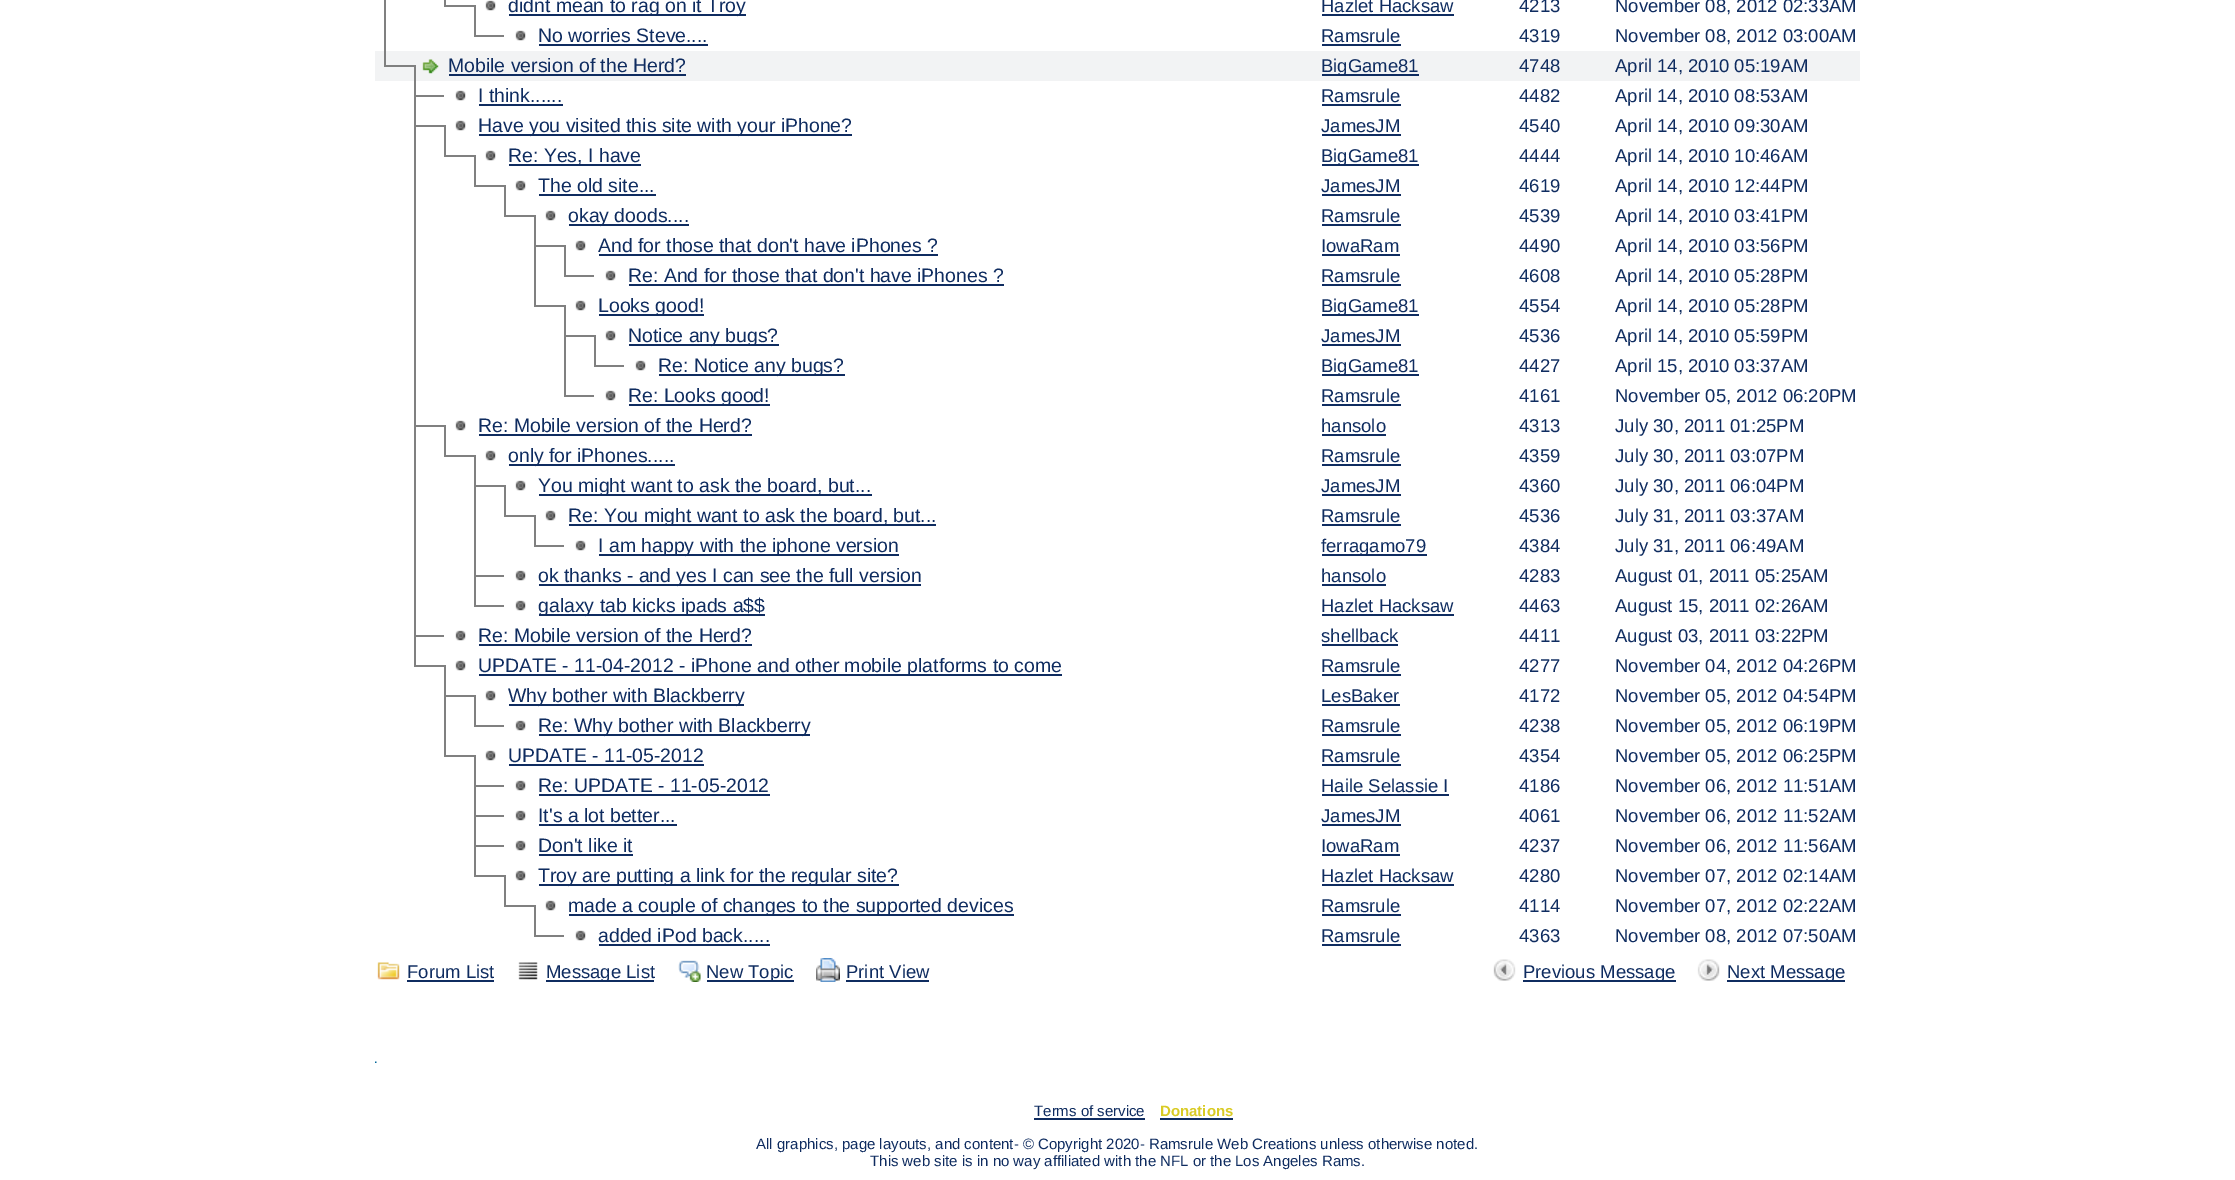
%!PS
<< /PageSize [2235 1180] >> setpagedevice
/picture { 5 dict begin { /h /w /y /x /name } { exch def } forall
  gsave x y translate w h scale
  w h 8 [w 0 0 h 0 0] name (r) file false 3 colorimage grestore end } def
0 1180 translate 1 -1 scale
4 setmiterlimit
1 setgray
0 0 2235 1180 rectfill
0.502 setgray
444 0 2 5 rectfill
(img1.rgb) 485 0 11 11 picture
0.059 0.173 0.376 setrgbcolor
509 14 237 2 rectfill
/LiberationSans-Regular [19.45 0 0 -19.45 0 0] selectfont
508 12 moveto (didnt mean to rag on it Troy) show
0.502 setgray
444 5 30 2 rectfill
/LiberationSans-Regular [18.5 0 0 -18.5 0 0] selectfont
0.059 0.173 0.376 setrgbcolor
1321 12 moveto (Hazlet Hacksaw) show
1322 14 132 2 rectfill
1519 12 moveto (4213) show
1615 12 moveto (November 08, 2012 02:33AM) show
0.502 setgray
474 5 2 30 rectfill
(img1.rgb) 515 30 11 11 picture
/LiberationSans-Regular [19.45 0 0 -19.45 0 0] selectfont
0.059 0.173 0.376 setrgbcolor
538 42 moveto (No worries Steve....) show
539 44 169 2 rectfill
0.502 setgray
474 35 30 2 rectfill
/LiberationSans-Regular [18.5 0 0 -18.5 0 0] selectfont
0.059 0.173 0.376 setrgbcolor
1321 42 moveto (Ramsrule) show
1322 44 79 2 rectfill
1519 42 moveto (4319) show
1615 42 moveto (November 08, 2012 03:00AM) show
0.949 0.953 0.957 setrgbcolor
375 51 1485 30 rectfill
0.502 setgray
384 0 2 65 rectfill
(img2.rgb) 422 59 17 15 picture
/LiberationSans-Regular [19.45 0 0 -19.45 0 0] selectfont
0.059 0.173 0.376 setrgbcolor
448 72 moveto (Mobile version of the Herd?) show
449 74 237 2 rectfill
0.502 setgray
384 65 30 2 rectfill
0.059 0.173 0.376 setrgbcolor
1322 74 97 2 rectfill
/LiberationSans-Regular [18.5 0 0 -18.5 0 0] selectfont
1321 72 moveto (BigGame81) show
1519 72 moveto (4748) show
1615 72 moveto (April 14, 2010 05:19AM) show
0.502 setgray
414 65 2 600 rectfill
414 95 30 2 rectfill
(img1.rgb) 455 90 11 11 picture
/LiberationSans-Regular [19.45 0 0 -19.45 0 0] selectfont
0.059 0.173 0.376 setrgbcolor
478 102 moveto (I think......) show
479 104 84 2 rectfill
/LiberationSans-Regular [18.5 0 0 -18.5 0 0] selectfont
1321 102 moveto (Ramsrule) show
1322 104 79 2 rectfill
1519 102 moveto (4482) show
1615 102 moveto (April 14, 2010 08:53AM) show
0.502 setgray
414 125 30 2 rectfill
(img1.rgb) 455 120 11 11 picture
0.059 0.173 0.376 setrgbcolor
479 134 373 2 rectfill
/LiberationSans-Regular [19.45 0 0 -19.45 0 0] selectfont
478 132 moveto (Have you visited this site with your iPhone?) show
/LiberationSans-Regular [18.5 0 0 -18.5 0 0] selectfont
1321 132 moveto (JamesJM) show
1322 134 79 2 rectfill
1519 132 moveto (4540) show
1615 132 moveto (April 14, 2010 09:30AM) show
0.502 setgray
444 125 2 30 rectfill
(img1.rgb) 485 150 11 11 picture
0.059 0.173 0.376 setrgbcolor
509 164 132 2 rectfill
/LiberationSans-Regular [19.45 0 0 -19.45 0 0] selectfont
508 162 moveto (Re: Yes, I have) show
0.502 setgray
444 155 30 2 rectfill
0.059 0.173 0.376 setrgbcolor
1322 164 97 2 rectfill
/LiberationSans-Regular [18.5 0 0 -18.5 0 0] selectfont
1321 162 moveto (BigGame81) show
1519 162 moveto (4444) show
1615 162 moveto (April 14, 2010 10:46AM) show
0.502 setgray
474 155 2 30 rectfill
(img1.rgb) 515 180 11 11 picture
/LiberationSans-Regular [19.45 0 0 -19.45 0 0] selectfont
0.059 0.173 0.376 setrgbcolor
538 192 moveto (The old site...) show
539 194 117 2 rectfill
0.502 setgray
474 185 30 2 rectfill
/LiberationSans-Regular [18.5 0 0 -18.5 0 0] selectfont
0.059 0.173 0.376 setrgbcolor
1321 192 moveto (JamesJM) show
1322 194 79 2 rectfill
1519 192 moveto (4619) show
1615 192 moveto (April 14, 2010 12:44PM) show
0.502 setgray
504 185 2 30 rectfill
504 215 30 2 rectfill
(img3.rgb) 545 210 11 11 picture
0.059 0.173 0.376 setrgbcolor
569 224 120 2 rectfill
/LiberationSans-Regular [19.45 0 0 -19.45 0 0] selectfont
568 222 moveto (okay doods....) show
/LiberationSans-Regular [18.5 0 0 -18.5 0 0] selectfont
1321 222 moveto (Ramsrule) show
1322 224 79 2 rectfill
1519 222 moveto (4539) show
1615 222 moveto (April 14, 2010 03:41PM) show
0.502 setgray
534 215 2 90 rectfill
534 245 30 2 rectfill
(img3.rgb) 575 240 11 11 picture
/LiberationSans-Regular [19.45 0 0 -19.45 0 0] selectfont
0.059 0.173 0.376 setrgbcolor
598 252 moveto (And for those that don't have iPhones ?) show
599 254 339 2 rectfill
/LiberationSans-Regular [18.5 0 0 -18.5 0 0] selectfont
1321 252 moveto (IowaRam) show
1322 254 78 2 rectfill
1519 252 moveto (4490) show
1615 252 moveto (April 14, 2010 03:56PM) show
0.502 setgray
564 245 2 30 rectfill
(img3.rgb) 605 270 11 11 picture
/LiberationSans-Regular [19.45 0 0 -19.45 0 0] selectfont
0.059 0.173 0.376 setrgbcolor
628 282 moveto (Re: And for those that don't have iPhones ?) show
629 284 375 2 rectfill
0.502 setgray
564 275 30 2 rectfill
/LiberationSans-Regular [18.5 0 0 -18.5 0 0] selectfont
0.059 0.173 0.376 setrgbcolor
1321 282 moveto (Ramsrule) show
1322 284 79 2 rectfill
1519 282 moveto (4608) show
1615 282 moveto (April 14, 2010 05:28PM) show
0.502 setgray
534 305 30 2 rectfill
(img3.rgb) 575 300 11 11 picture
0.059 0.173 0.376 setrgbcolor
599 314 105 2 rectfill
/LiberationSans-Regular [19.45 0 0 -19.45 0 0] selectfont
598 312 moveto (Looks good!) show
1322 314 97 2 rectfill
/LiberationSans-Regular [18.5 0 0 -18.5 0 0] selectfont
1321 312 moveto (BigGame81) show
1519 312 moveto (4554) show
1615 312 moveto (April 14, 2010 05:28PM) show
0.502 setgray
564 305 2 90 rectfill
564 335 30 2 rectfill
(img3.rgb) 605 330 11 11 picture
0.059 0.173 0.376 setrgbcolor
629 344 150 2 rectfill
/LiberationSans-Regular [19.45 0 0 -19.45 0 0] selectfont
628 342 moveto (Notice any bugs?) show
/LiberationSans-Regular [18.5 0 0 -18.5 0 0] selectfont
1321 342 moveto (JamesJM) show
1322 344 79 2 rectfill
1519 342 moveto (4536) show
1615 342 moveto (April 14, 2010 05:59PM) show
0.502 setgray
594 335 2 30 rectfill
594 365 30 2 rectfill
(img3.rgb) 635 360 11 11 picture
0.059 0.173 0.376 setrgbcolor
659 374 186 2 rectfill
/LiberationSans-Regular [19.45 0 0 -19.45 0 0] selectfont
658 372 moveto (Re: Notice any bugs?) show
1322 374 97 2 rectfill
/LiberationSans-Regular [18.5 0 0 -18.5 0 0] selectfont
1321 372 moveto (BigGame81) show
1519 372 moveto (4427) show
1615 372 moveto (April 15, 2010 03:37AM) show
0.502 setgray
564 395 30 2 rectfill
(img3.rgb) 605 390 11 11 picture
0.059 0.173 0.376 setrgbcolor
629 404 141 2 rectfill
/LiberationSans-Regular [19.45 0 0 -19.45 0 0] selectfont
628 402 moveto (Re: Looks good!) show
/LiberationSans-Regular [18.5 0 0 -18.5 0 0] selectfont
1321 402 moveto (Ramsrule) show
1322 404 79 2 rectfill
1519 402 moveto (4161) show
1615 402 moveto (November 05, 2012 06:20PM) show
0.502 setgray
414 425 30 2 rectfill
(img1.rgb) 455 420 11 11 picture
/LiberationSans-Regular [19.45 0 0 -19.45 0 0] selectfont
0.059 0.173 0.376 setrgbcolor
478 432 moveto (Re: Mobile version of the Herd?) show
479 434 273 2 rectfill
/LiberationSans-Regular [18.5 0 0 -18.5 0 0] selectfont
1321 432 moveto (hansolo) show
1322 434 64 2 rectfill
1519 432 moveto (4313) show
1615 432 moveto (July 30, 2011 01:25PM) show
0.502 setgray
444 425 2 30 rectfill
444 455 30 2 rectfill
(img1.rgb) 485 450 11 11 picture
0.059 0.173 0.376 setrgbcolor
509 464 166 2 rectfill
/LiberationSans-Regular [19.45 0 0 -19.45 0 0] selectfont
508 462 moveto (only for iPhones.....) show
/LiberationSans-Regular [18.5 0 0 -18.5 0 0] selectfont
1321 462 moveto (Ramsrule) show
1322 464 79 2 rectfill
1519 462 moveto (4359) show
1615 462 moveto (July 30, 2011 03:07PM) show
0.502 setgray
474 455 2 150 rectfill
474 485 30 2 rectfill
(img1.rgb) 515 480 11 11 picture
0.059 0.173 0.376 setrgbcolor
539 494 333 2 rectfill
/LiberationSans-Regular [19.45 0 0 -19.45 0 0] selectfont
538 492 moveto (You might want to ask the board, but...) show
/LiberationSans-Regular [18.5 0 0 -18.5 0 0] selectfont
1321 492 moveto (JamesJM) show
1322 494 79 2 rectfill
1519 492 moveto (4360) show
1615 492 moveto (July 30, 2011 06:04PM) show
0.502 setgray
504 485 2 30 rectfill
504 515 30 2 rectfill
(img3.rgb) 545 510 11 11 picture
0.059 0.173 0.376 setrgbcolor
569 524 367 2 rectfill
/LiberationSans-Regular [19.45 0 0 -19.45 0 0] selectfont
568 522 moveto (Re: You might want to ask the board, but...) show
/LiberationSans-Regular [18.5 0 0 -18.5 0 0] selectfont
1321 522 moveto (Ramsrule) show
1322 524 79 2 rectfill
1519 522 moveto (4536) show
1615 522 moveto (July 31, 2011 03:37AM) show
0.502 setgray
534 515 2 30 rectfill
534 545 30 2 rectfill
(img3.rgb) 575 540 11 11 picture
0.059 0.173 0.376 setrgbcolor
599 554 300 2 rectfill
/LiberationSans-Regular [19.45 0 0 -19.45 0 0] selectfont
598 552 moveto (I am happy with the iphone version) show
1322 554 105 2 rectfill
/LiberationSans-Regular [18.5 0 0 -18.5 0 0] selectfont
1321 552 moveto (ferragamo79) show
1519 552 moveto (4384) show
1615 552 moveto (July 31, 2011 06:49AM) show
0.502 setgray
474 575 30 2 rectfill
(img1.rgb) 515 570 11 11 picture
0.059 0.173 0.376 setrgbcolor
539 584 382 2 rectfill
/LiberationSans-Regular [19.45 0 0 -19.45 0 0] selectfont
538 582 moveto (ok thanks - and yes I can see the full version) show
/LiberationSans-Regular [18.5 0 0 -18.5 0 0] selectfont
1321 582 moveto (hansolo) show
1322 584 64 2 rectfill
1519 582 moveto (4283) show
1615 582 moveto (August 01, 2011 05:25AM) show
0.502 setgray
474 605 30 2 rectfill
(img1.rgb) 515 600 11 11 picture
0.059 0.173 0.376 setrgbcolor
539 614 226 2 rectfill
/LiberationSans-Regular [19.45 0 0 -19.45 0 0] selectfont
538 612 moveto (galaxy tab kicks ipads a$$) show
/LiberationSans-Regular [18.5 0 0 -18.5 0 0] selectfont
1321 612 moveto (Hazlet Hacksaw) show
1322 614 132 2 rectfill
1519 612 moveto (4463) show
1615 612 moveto (August 15, 2011 02:26AM) show
0.502 setgray
414 635 30 2 rectfill
(img1.rgb) 455 630 11 11 picture
/LiberationSans-Regular [19.45 0 0 -19.45 0 0] selectfont
0.059 0.173 0.376 setrgbcolor
478 642 moveto (Re: Mobile version of the Herd?) show
479 644 273 2 rectfill
/LiberationSans-Regular [18.5 0 0 -18.5 0 0] selectfont
1321 642 moveto (shellback) show
1322 644 76 2 rectfill
1519 642 moveto (4411) show
1615 642 moveto (August 03, 2011 03:22PM) show
0.502 setgray
414 665 30 2 rectfill
(img1.rgb) 455 660 11 11 picture
0.059 0.173 0.376 setrgbcolor
479 674 583 2 rectfill
/LiberationSans-Regular [19.45 0 0 -19.45 0 0] selectfont
478 672 moveto (UPDATE - 11-04-2012 - iPhone and other mobile platforms to come) show
/LiberationSans-Regular [18.5 0 0 -18.5 0 0] selectfont
1321 672 moveto (Ramsrule) show
1322 674 79 2 rectfill
1519 672 moveto (4277) show
1615 672 moveto (November 04, 2012 04:26PM) show
0.502 setgray
444 665 2 90 rectfill
444 695 30 2 rectfill
(img1.rgb) 485 690 11 11 picture
0.059 0.173 0.376 setrgbcolor
509 704 235 2 rectfill
/LiberationSans-Regular [19.45 0 0 -19.45 0 0] selectfont
508 702 moveto (Why bother with Blackberry) show
/LiberationSans-Regular [18.5 0 0 -18.5 0 0] selectfont
1321 702 moveto (LesBaker) show
1322 704 78 2 rectfill
1519 702 moveto (4172) show
1615 702 moveto (November 05, 2012 04:54PM) show
0.502 setgray
474 695 2 30 rectfill
474 725 30 2 rectfill
(img1.rgb) 515 720 11 11 picture
0.059 0.173 0.376 setrgbcolor
539 734 271 2 rectfill
/LiberationSans-Regular [19.45 0 0 -19.45 0 0] selectfont
538 732 moveto (Re: Why bother with Blackberry) show
/LiberationSans-Regular [18.5 0 0 -18.5 0 0] selectfont
1321 732 moveto (Ramsrule) show
1322 734 79 2 rectfill
1519 732 moveto (4238) show
1615 732 moveto (November 05, 2012 06:19PM) show
(img1.rgb) 485 750 11 11 picture
/LiberationSans-Regular [19.45 0 0 -19.45 0 0] selectfont
508 762 moveto (UPDATE - 11-05-2012) show
509 764 195 2 rectfill
0.502 setgray
444 755 30 2 rectfill
/LiberationSans-Regular [18.5 0 0 -18.5 0 0] selectfont
0.059 0.173 0.376 setrgbcolor
1321 762 moveto (Ramsrule) show
1322 764 79 2 rectfill
1519 762 moveto (4354) show
1615 762 moveto (November 05, 2012 06:25PM) show
0.502 setgray
474 755 2 120 rectfill
474 785 30 2 rectfill
(img1.rgb) 515 780 11 11 picture
/LiberationSans-Regular [19.45 0 0 -19.45 0 0] selectfont
0.059 0.173 0.376 setrgbcolor
538 792 moveto (Re: UPDATE - 11-05-2012) show
539 794 231 2 rectfill
/LiberationSans-Regular [18.5 0 0 -18.5 0 0] selectfont
1321 792 moveto (Haile Selassie I) show
1322 794 127 2 rectfill
1519 792 moveto (4186) show
1615 792 moveto (November 06, 2012 11:51AM) show
0.502 setgray
474 815 30 2 rectfill
(img1.rgb) 515 810 11 11 picture
/LiberationSans-Regular [19.45 0 0 -19.45 0 0] selectfont
0.059 0.173 0.376 setrgbcolor
538 822 moveto (It's a lot better...) show
539 824 138 2 rectfill
/LiberationSans-Regular [18.5 0 0 -18.5 0 0] selectfont
1321 822 moveto (JamesJM) show
1322 824 79 2 rectfill
1519 822 moveto (4061) show
1615 822 moveto (November 06, 2012 11:52AM) show
0.502 setgray
474 845 30 2 rectfill
(img1.rgb) 515 840 11 11 picture
/LiberationSans-Regular [19.45 0 0 -19.45 0 0] selectfont
0.059 0.173 0.376 setrgbcolor
538 852 moveto (Don't like it) show
539 854 94 2 rectfill
/LiberationSans-Regular [18.5 0 0 -18.5 0 0] selectfont
1321 852 moveto (IowaRam) show
1322 854 78 2 rectfill
1519 852 moveto (4237) show
1615 852 moveto (November 06, 2012 11:56AM) show
0.502 setgray
474 875 30 2 rectfill
(img1.rgb) 515 870 11 11 picture
0.059 0.173 0.376 setrgbcolor
539 884 360 2 rectfill
/LiberationSans-Regular [19.45 0 0 -19.45 0 0] selectfont
538 882 moveto (Troy are putting a link for the regular site?) show
/LiberationSans-Regular [18.5 0 0 -18.5 0 0] selectfont
1321 882 moveto (Hazlet Hacksaw) show
1322 884 132 2 rectfill
1519 882 moveto (4280) show
1615 882 moveto (November 07, 2012 02:14AM) show
0.502 setgray
504 875 2 30 rectfill
504 905 30 2 rectfill
(img3.rgb) 545 900 11 11 picture
0.059 0.173 0.376 setrgbcolor
569 914 445 2 rectfill
/LiberationSans-Regular [19.45 0 0 -19.45 0 0] selectfont
568 912 moveto (made a couple of changes to the supported devices) show
/LiberationSans-Regular [18.5 0 0 -18.5 0 0] selectfont
1321 912 moveto (Ramsrule) show
1322 914 79 2 rectfill
1519 912 moveto (4114) show
1615 912 moveto (November 07, 2012 02:22AM) show
0.502 setgray
534 905 2 30 rectfill
(img3.rgb) 575 930 11 11 picture
/LiberationSans-Regular [19.45 0 0 -19.45 0 0] selectfont
0.059 0.173 0.376 setrgbcolor
598 942 moveto (added iPod back.....) show
599 944 171 2 rectfill
0.502 setgray
534 935 30 2 rectfill
/LiberationSans-Regular [18.5 0 0 -18.5 0 0] selectfont
0.059 0.173 0.376 setrgbcolor
1321 942 moveto (Ramsrule) show
1322 944 79 2 rectfill
1519 942 moveto (4363) show
1615 942 moveto (November 08, 2012 07:50AM) show
(img4.rgb) 377 962 23 18 picture
407 978 moveto (Forum List) show
407 980 87 2 rectfill
(img5.rgb) 518 962 20 18 picture
546 980 108 2 rectfill
546 978 moveto (Message List) show
(img6.rgb) 678 960 23 22 picture
707 980 87 2 rectfill
706 978 moveto (New Topic) show
(img7.rgb) 816 958 24 24 picture
846 978 moveto (Print View) show
846 980 83 2 rectfill
(img8.rgb) 1493 959 23 22 picture
1523 980 153 2 rectfill
1523 978 moveto (Previous Message) show
(img9.rgb) 1697 959 23 22 picture
1727 980 118 2 rectfill
1727 978 moveto (Next Message) show
(img10.rgb) 375 1061 2 2 picture
/LiberationSans-Regular [15 0 0 -15 0 0] selectfont
1034 1116 moveto (Terms of service) show
1034 1118 111 2 rectfill
/LiberationSans-Bold [15 0 0 -15 0 0] selectfont
0.851 0.796 0.145 setrgbcolor
1160 1116 moveto (Donations) show
0.059 0.173 0.376 setrgbcolor
1160 1118 73 2 rectfill
/LiberationSans-Regular [15 0 0 -15 0 0] selectfont
756 1149 moveto (All graphics, page layouts, and content- © Copyright 2020- Ramsrule Web Creations unless otherwise noted.) show
870 1166 moveto (This web site is in no way affiliated with the NFL or the Los Angeles Rams.) show
showpage
